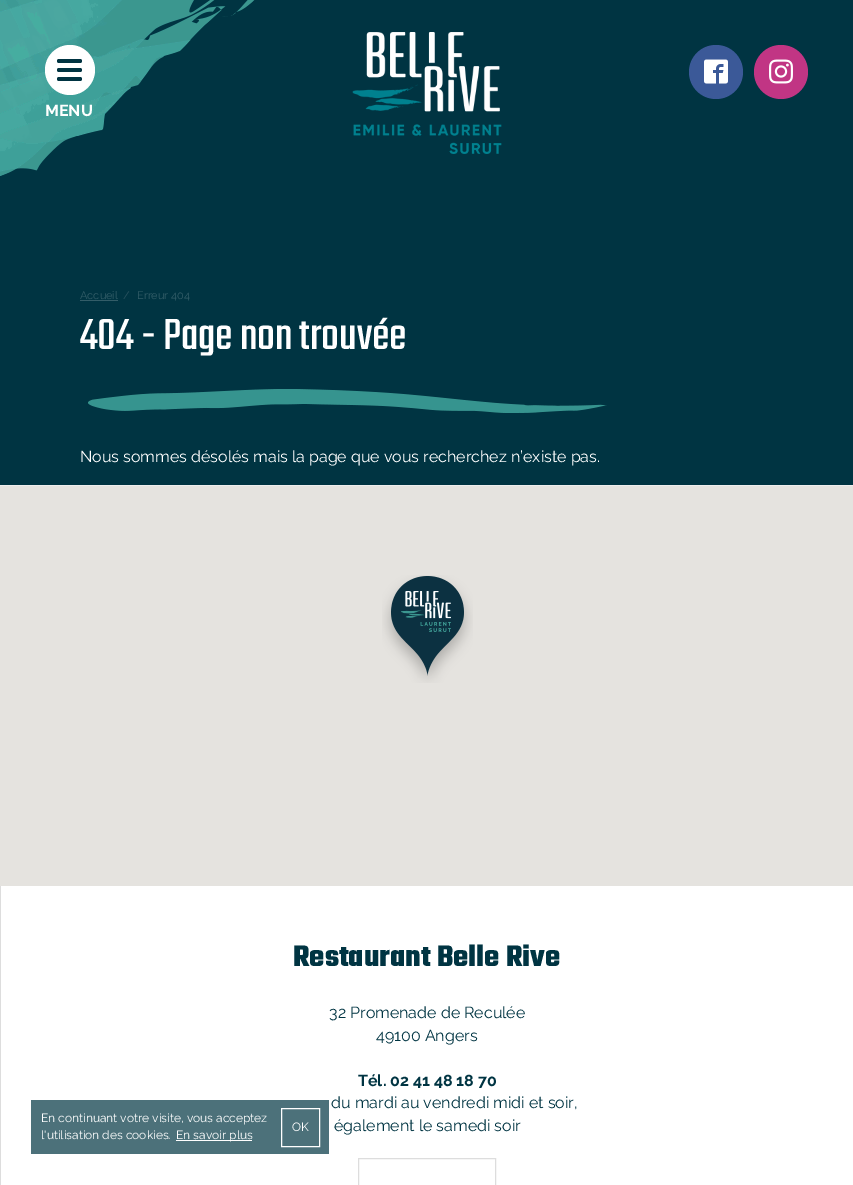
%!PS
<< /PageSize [853 1185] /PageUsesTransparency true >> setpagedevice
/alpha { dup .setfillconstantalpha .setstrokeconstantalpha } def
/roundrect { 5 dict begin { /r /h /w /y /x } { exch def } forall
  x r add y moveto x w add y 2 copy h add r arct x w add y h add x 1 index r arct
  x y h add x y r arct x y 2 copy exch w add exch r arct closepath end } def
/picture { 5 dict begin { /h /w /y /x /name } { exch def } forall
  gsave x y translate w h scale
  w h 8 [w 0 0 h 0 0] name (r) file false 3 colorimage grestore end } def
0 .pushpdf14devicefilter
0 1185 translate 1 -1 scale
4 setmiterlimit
0 0.204 0.259 setrgbcolor
0 0 853 1185 rectfill
(img1.rgb) 0 0 255 176 picture
(img2.rgb) 352 32 150 122 picture
0.231 0.349 0.596 setrgbcolor
newpath 716 72 27 0 360 arc closepath fill
(img3.rgb) 704 59 24 25 picture
0.757 0.208 0.518 setrgbcolor
newpath 781 72 27 0 360 arc closepath fill
(img4.rgb) 769 59 24 25 picture
1 setgray
newpath 70 70 25 0 360 arc closepath fill
0 0.204 0.259 setrgbcolor
57 59 25 4 2 roundrect fill
57 68 25 4 2 roundrect fill
57 77 25 4 2 roundrect fill
/Raleway-Bold [16 0 0 -16 0 0] selectfont
1 setgray
45 116 moveto (MENU) show
/Raleway-Regular [11 0 0 -11 0 0] selectfont
0.2 0.365 0.408 setrgbcolor
80 299 moveto (Accueil) show
80 300 38 1 rectfill
0.161 0.322 0.369 setrgbcolor
123 299 moveto (/) show
0.2 0.365 0.408 setrgbcolor
137 299 moveto (Erreur 404) show
/Teko-Regular [48 0 0 -48 0 0] selectfont
1 setgray
80 349 moveto (404 - Page non trouvée) show
(img5.rgb) 88 389 519 24 picture
/Raleway-Regular [16 0 0 -16 0 0] selectfont
80 462 moveto (Nous sommes désolés mais la page que vous recherchez n’existe pas.) show
1 886 852 299 rectfill
0.933 setgray
0 485 853 1 rectfill
0.898 0.89 0.875 setrgbcolor
0 486 853 400 rectfill
(img6.rgb) 382 575 91 108 picture
0.867 setgray
0 886 1 299 rectfill
/Teko-Bold [32 0 0 -32 0 0] selectfont
0 0.204 0.259 setrgbcolor
293 966 moveto (Restaurant Belle Rive) show
/Raleway-Regular [16 0 0 -16 0 0] selectfont
329 1018 moveto (32 Promenade de Reculée) show
376 1041 moveto (49100 Angers) show
/Raleway-Bold [16 0 0 -16 0 0] selectfont
358 1086 moveto (Tél. 02 41 48 18 70) show
/Raleway-Regular [16 0 0 -16 0 0] selectfont
331 1108 moveto (du mardi au vendredi midi et soir,) show
334 1131 moveto (également le samedi soir) show
0.867 setgray
358.5 1158.5 137 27 rectstroke
0.7 alpha
0 0.204 0.259 setrgbcolor
31 1100 298 54 rectfill
/Raleway-Regular [12 0 0 -12 0 0] selectfont
1 alpha
1 setgray
41 1122 moveto (En continuant votre visite, vous acceptez) show
281.5 1108.5 38 38 rectstroke
292 1131 moveto (OK) show
41 1139 moveto (l'utilisation des cookies.) show
176 1140 76 1 rectfill
176 1139 moveto (En savoir plus) show
.poppdf14devicefilter showpage
